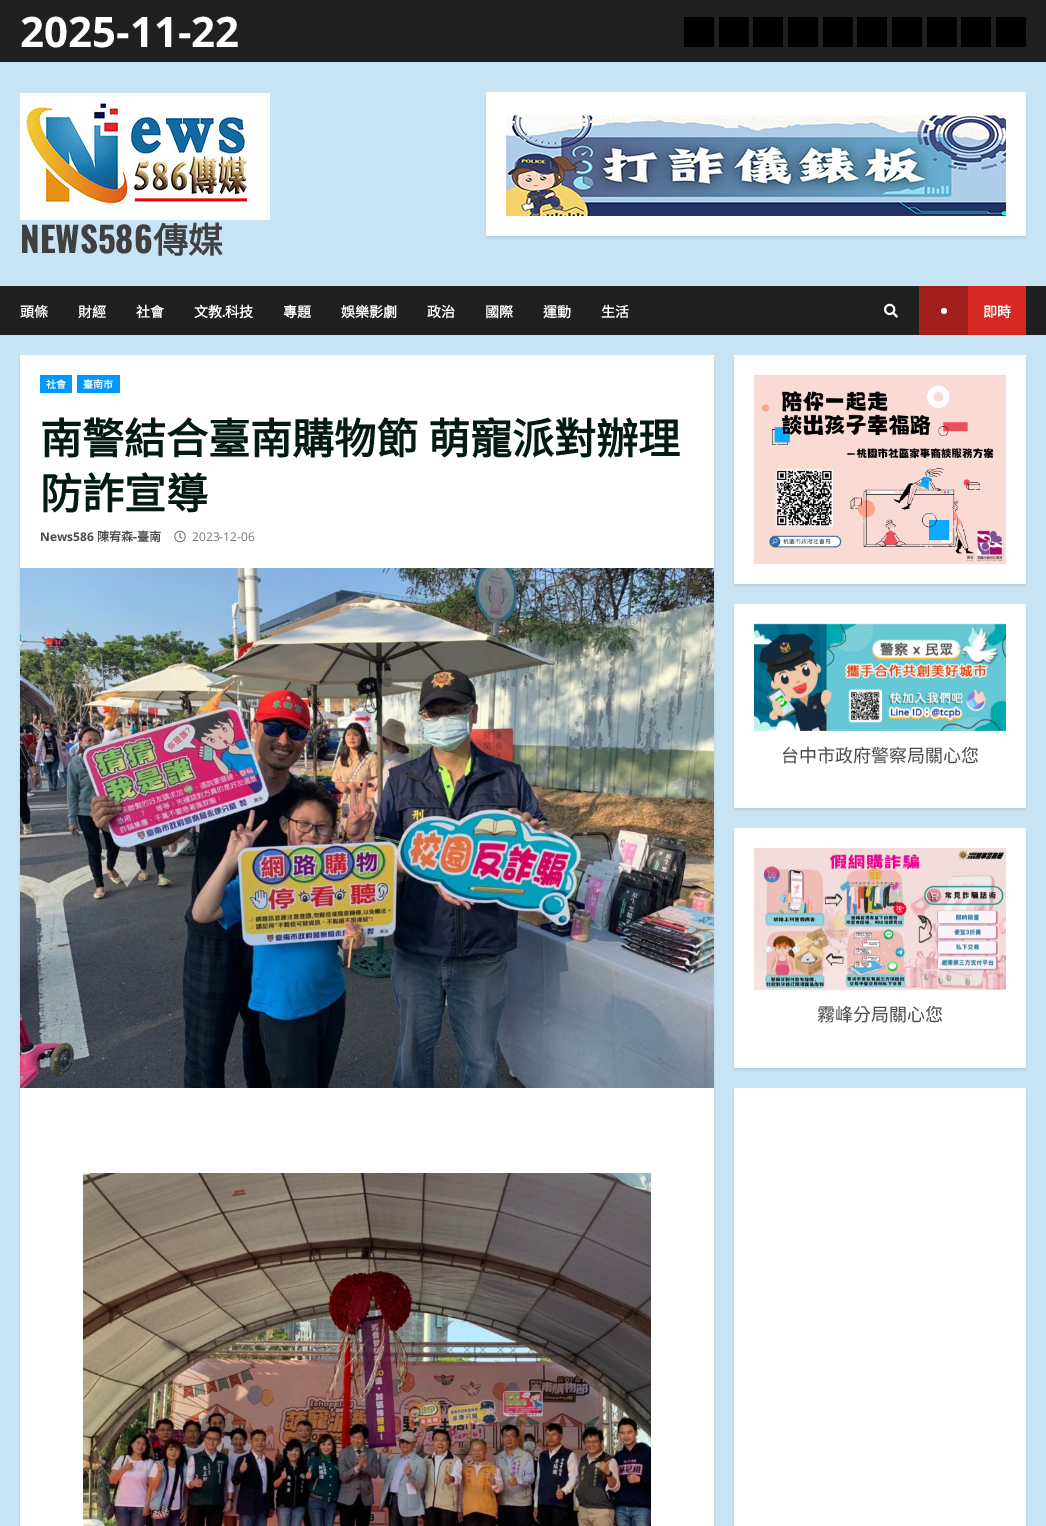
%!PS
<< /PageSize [1046 1526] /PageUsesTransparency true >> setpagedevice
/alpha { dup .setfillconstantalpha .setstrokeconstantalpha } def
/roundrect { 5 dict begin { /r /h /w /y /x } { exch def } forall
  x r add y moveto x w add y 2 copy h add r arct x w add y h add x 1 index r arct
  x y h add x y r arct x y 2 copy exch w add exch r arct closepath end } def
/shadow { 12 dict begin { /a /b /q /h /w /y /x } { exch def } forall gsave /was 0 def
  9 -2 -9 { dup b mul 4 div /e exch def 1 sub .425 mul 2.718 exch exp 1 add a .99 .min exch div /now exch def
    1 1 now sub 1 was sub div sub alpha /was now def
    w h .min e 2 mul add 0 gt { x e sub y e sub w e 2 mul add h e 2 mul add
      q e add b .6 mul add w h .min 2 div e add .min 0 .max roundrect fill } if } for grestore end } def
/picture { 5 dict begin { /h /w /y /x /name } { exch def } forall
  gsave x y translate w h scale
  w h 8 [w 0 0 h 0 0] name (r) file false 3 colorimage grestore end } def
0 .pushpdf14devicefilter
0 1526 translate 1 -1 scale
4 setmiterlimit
0.784 0.894 0.957 setrgbcolor
0 0 1046 1526 rectfill
0.125 setgray
0 0 1046 62 rectfill
/OpenSans-Bold [42 0 0 -42 0 0] selectfont
1 setgray
20 47 moveto (2025-11-22) show
0 setgray
684 17 30 30 rectfill
719 17 30 30 rectfill
753 17 30 30 rectfill
788 17 30 30 rectfill
823 17 30 30 rectfill
857 17 30 30 rectfill
892 17 30 30 rectfill
927 17 30 30 rectfill
961 17 30 30 rectfill
996 17 30 30 rectfill
(img1.rgb) 20 93 250 127 picture
/Oswald-Bold [35 0 0 -35 0 0] selectfont
0.251 setgray
20 253 moveto (NEWS586) show
/NotoSansCJKTC-Bold [35 0 0 -35 0 0] selectfont
153 253 moveto (傳媒) show
0 setgray
486 94 540 144 0 1 0.08 shadow
1 setgray
486 92 540 144 rectfill
(img2.rgb) 506 112 500 104 picture
0.125 setgray
0 286 1046 49 rectfill
/NotoSansCJKTC-Bold [14 0 0 -14 0 0] selectfont
1 setgray
20 317 moveto (頭條) show
78 317 moveto (財經) show
136 317 moveto (社會) show
194 317 moveto (文教 科技) show
/Oswald-Bold [14 0 0 -14 0 0] selectfont
222 317 moveto (.) show
/NotoSansCJKTC-Bold [14 0 0 -14 0 0] selectfont
283 317 moveto (專題) show
341 317 moveto (娛樂影劇) show
427 317 moveto (政治) show
485 317 moveto (國際) show
543 317 moveto (運動) show
601 317 moveto (生活) show
(img3.rgb) 884 303 14 15 picture
0.843 0.161 0.141 setrgbcolor
968 286 58 49 rectfill
0.631 0.122 0.106 setrgbcolor
919 286 49 49 rectfill
1 setgray
newpath 944 311 3 0 360 arc closepath fill
983 317 moveto (即時) show
0 setgray
20 357 694 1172 0 1 0.08 shadow
1 setgray
20 355 694 1171 rectfill
0 0.596 0.996 setrgbcolor
40 375 32 18 rectfill
/NotoSansCJKTC-Bold [10 0 0 -10 0 0] selectfont
1 setgray
46 388 moveto (社會) show
0 0.596 0.996 setrgbcolor
77 375 43 18 rectfill
1 setgray
83 388 moveto (臺南市) show
/NotoSansCJKTC-Bold [42 0 0 -42 0 0] selectfont
0.012 0.106 0.067 setrgbcolor
40 454 moveto 1 0 32 (南警結合臺南購物節 萌寵派對辦理) widthshow
40 509 moveto (防詐宣導) show
/OpenSans-Bold [12 0 0 -12 0 0] selectfont
0.29 setgray
40 541 moveto (News586) show
/NotoSansCJKTC-Bold [12 0 0 -12 0 0] selectfont
97 541 moveto (陳宥森) show
/OpenSans-Bold [12 0 0 -12 0 0] selectfont
133 541 moveto (-) show
/NotoSansCJKTC-Bold [12 0 0 -12 0 0] selectfont
137 541 moveto (臺南) show
(img4.rgb) 174 530 12 13 picture
/OpenSans-Regular [12 0 0 -12 0 0] selectfont
0.467 setgray
192 541 moveto (2023-12-06) show
(img5.rgb) 20 568 694 520 picture
(img6.rgb) 83 1173 568 353 picture
0 setgray
734 357 292 229 0 1 0.08 shadow
1 setgray
734 355 292 229 rectfill
(img7.rgb) 754 375 252 189 picture
0 setgray
734 606 292 204 0 1 0.08 shadow
1 setgray
734 604 292 204 rectfill
(img8.rgb) 754 623 252 108 picture
/NotoSansCJKTC-Regular [18 0 0 -18 0 0] selectfont
0.29 setgray
781 762 moveto (台中市政府警察局關心您) show
0 setgray
734 830 292 240 0 1 0.08 shadow
1 setgray
734 828 292 240 rectfill
(img9.rgb) 754 848 252 143 picture
0.29 setgray
817 1021 moveto (霧峰分局關心您) show
0 setgray
734 1090 292 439 0 1 0.08 shadow
1 setgray
734 1088 292 438 rectfill
.poppdf14devicefilter showpage
